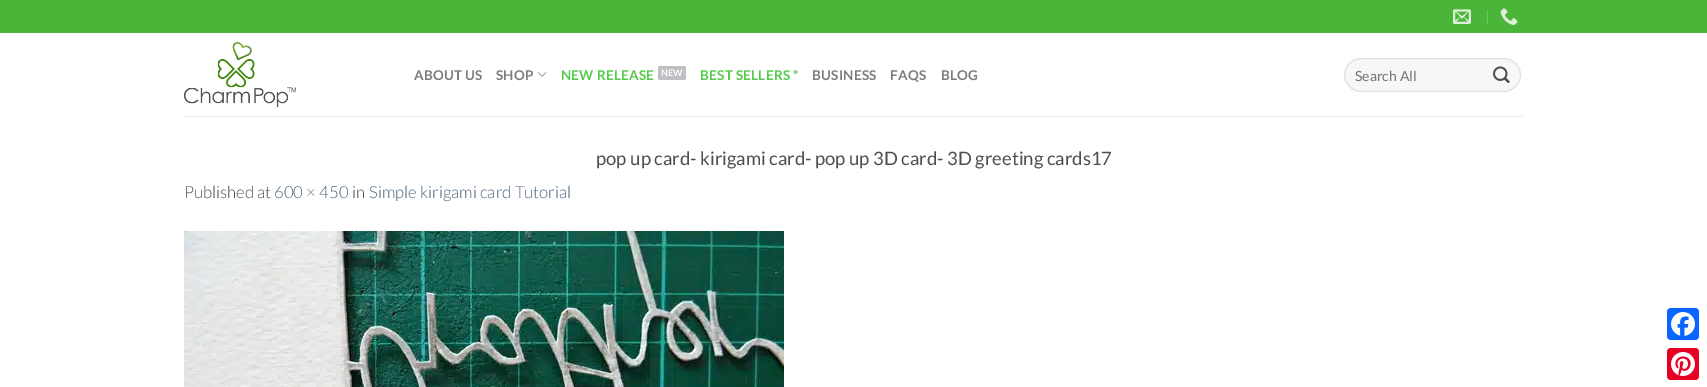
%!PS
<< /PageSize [1707 387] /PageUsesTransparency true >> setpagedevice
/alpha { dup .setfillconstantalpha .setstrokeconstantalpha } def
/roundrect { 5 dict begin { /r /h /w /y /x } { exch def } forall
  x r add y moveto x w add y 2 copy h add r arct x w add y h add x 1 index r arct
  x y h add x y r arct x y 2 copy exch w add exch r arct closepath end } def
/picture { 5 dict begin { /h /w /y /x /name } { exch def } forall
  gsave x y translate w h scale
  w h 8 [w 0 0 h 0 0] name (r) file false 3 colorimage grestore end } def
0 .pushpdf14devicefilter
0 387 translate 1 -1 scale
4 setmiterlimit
1 setgray
0 0 1707 387 rectfill
0.29 0.71 0.22 setrgbcolor
0 0 1707 33 rectfill
(img1.rgb) 1453 9 18 15 picture
0.431 0.769 0.376 setrgbcolor
1487 10 1 15 rectfill
(img2.rgb) 1500 8 18 18 picture
(img3.rgb) 184 42 112 65 picture
/Lato-Bold [13.5 0 0 -13.5 0 0] selectfont
0.49 setgray
414 80 moveto 0.25 0 (ABOUT US) ashow
496 80 moveto 0.25 0 (SHOP) ashow
(img4.rgb) 537 71 10 6 picture
0.337 0.792 0.29 setrgbcolor
561 80 moveto 0.25 0 (NEW RELEASE) ashow
0.749 0.753 0.765 setrgbcolor
658 66 28 14 2 roundrect fill
/Lato-Bold [9 0 0 -9 0 0] selectfont
1 setgray
661 76 moveto (NEW) show
/Lato-Bold [13.5 0 0 -13.5 0 0] selectfont
0.337 0.792 0.29 setrgbcolor
700 80 moveto 0.25 0 (BEST SELLERS *) ashow
0.49 setgray
812 80 moveto 0.25 0 (BUSINESS) ashow
890 80 moveto 0.25 0 (FAQS) ashow
941 80 moveto 0.25 0 (BLOG) ashow
0.969 setgray
1344 58 177 34 17 roundrect fill
0.09 alpha
0 setgray
1344.5 58.5 176 33 16.5 roundrect stroke
/Lato-Regular [14 0 0 -14 0 0] selectfont
1 alpha
0.459 setgray
1355 81 moveto (Search All) show
(img5.rgb) 1493 66 17 17 picture
0.929 setgray
184 116 1340 1 rectfill
/Lato-Regular [18.5 0 0 -18.5 0 0] selectfont
0.31 setgray
596 165 moveto (pop up card- kirigami card- pop up 3D card- 3D greeting cards17) show
/Lato-Light [16.75 0 0 -16.75 0 0] selectfont
184 198 moveto (Published at) show
0.306 0.396 0.482 setrgbcolor
274 198 moveto (600 × 450) show
0.31 setgray
352 198 moveto (in) show
0.306 0.396 0.482 setrgbcolor
369 198 moveto (Simple kirigami card Tutorial) show
(img6.rgb) 184 231 600 156 picture
0.031 0.4 1 setrgbcolor
1667 308 32 32 4 roundrect fill
(img7.rgb) 1671 312 24 24 picture
0.902 0 0.137 setrgbcolor
1667 348 32 32 4 roundrect fill
(img8.rgb) 1671 352 24 24 picture
.poppdf14devicefilter showpage
